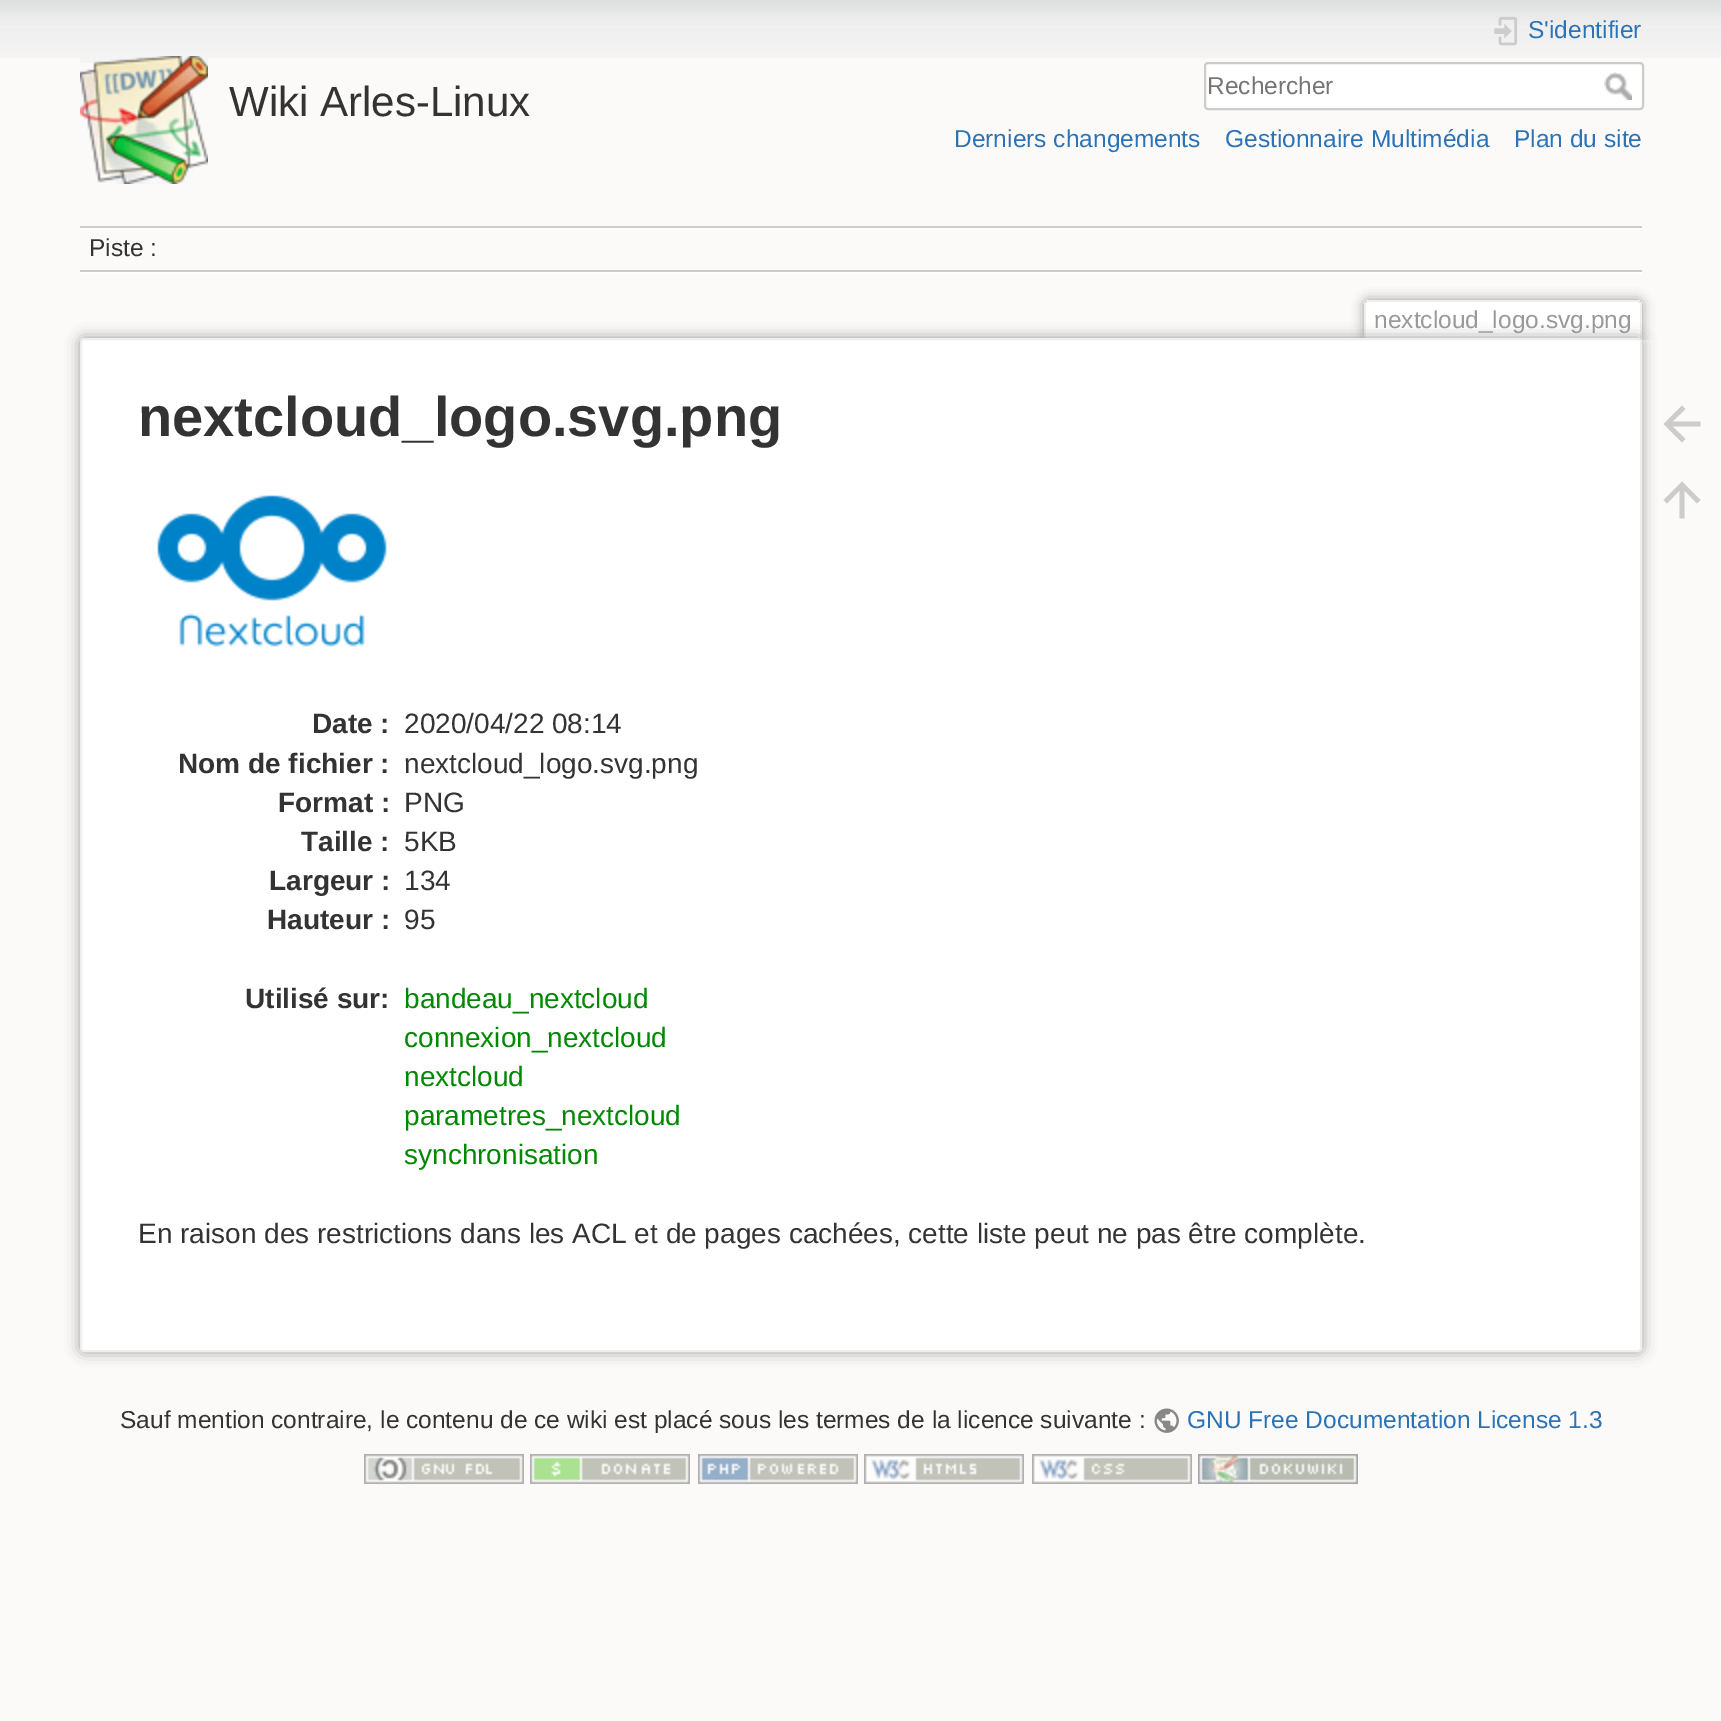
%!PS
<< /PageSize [1721 1721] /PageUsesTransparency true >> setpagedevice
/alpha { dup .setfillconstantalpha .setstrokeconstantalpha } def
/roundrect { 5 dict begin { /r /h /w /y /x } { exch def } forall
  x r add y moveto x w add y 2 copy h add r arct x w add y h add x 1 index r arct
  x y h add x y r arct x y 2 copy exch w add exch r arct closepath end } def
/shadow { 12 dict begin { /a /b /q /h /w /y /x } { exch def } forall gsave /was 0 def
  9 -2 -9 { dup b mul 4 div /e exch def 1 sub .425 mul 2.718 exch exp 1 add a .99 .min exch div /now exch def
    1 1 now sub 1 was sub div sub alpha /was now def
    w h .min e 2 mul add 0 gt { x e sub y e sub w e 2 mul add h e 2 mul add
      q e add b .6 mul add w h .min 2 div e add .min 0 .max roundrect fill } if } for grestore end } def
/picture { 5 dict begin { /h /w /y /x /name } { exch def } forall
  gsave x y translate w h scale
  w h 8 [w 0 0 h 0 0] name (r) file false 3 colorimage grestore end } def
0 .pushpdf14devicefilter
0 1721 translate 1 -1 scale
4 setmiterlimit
0.984 0.98 0.976 setrgbcolor
0 0 1721 1721 rectfill
(img1.rgb) 0 0 1721 58 picture
(img2.rgb) 80 56 128 128 picture
/LiberationSans-Regular [42 0 0 -42 0 0] selectfont
0.2 setgray
229 116 moveto (Wiki Arles-Linux) show
(img3.rgb) 1494 16 24 30 picture
/LiberationSans-Regular [24.5 0 0 -24.5 0 0] selectfont
0.169 0.451 0.718 setrgbcolor
1528 38 moveto (S'identifier) show
1 setgray
1205 63 438 46 3 roundrect gsave fill grestore
0.8 setgray
2 setlinewidth
stroke
0.459 setgray
1207 94 moveto (Rechercher) show
(img4.rgb) 1604 72 28 28 picture
0.169 0.451 0.718 setrgbcolor
954 147 moveto (Derniers changements) show
1225 147 moveto (Gestionnaire Multimédia) show
1514 147 moveto (Plan du site) show
0.8 setgray
80 226 1562 2 rectfill
1 setgray
80 272 1562 2 rectfill
80 228 1562 2 rectfill
0.8 setgray
80 270 1562 2 rectfill
0.2 setgray
89 256 moveto (Piste :) show
gsave
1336 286 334 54 rectclip
0.6 setgray
1364 300 278 40 4 6 1 shadow
grestore
1 setgray
newpath 1368 302 moveto 1638 302 lineto 1639 302 1640 303 1640 304 curveto 1640 340 lineto 1366 340 lineto 1366 304 lineto 1366 303 1367 302 1368 302 curveto closepath fill
0.933 setgray
1366 300 274 2 rectfill
1640 302 2 38 rectfill
1364 302 2 38 rectfill
0.6 setgray
1374 328 moveto (nextcloud_logo.svg.png) show
80 338 1562 1014 4 7 1 shadow
1 setgray
81 339 1560 1012 3 roundrect gsave fill grestore
0.933 setgray
stroke
/LiberationSans-Bold [56 0 0 -56 0 0] selectfont
0.2 setgray
138 436 moveto (nextcloud_logo.svg.png) show
(img5.rgb) 157 495 230 152 picture
/LiberationSans-Bold [28 0 0 -28 0 0] selectfont
312 733 moveto (Date :) show
/LiberationSans-Regular [28 0 0 -28 0 0] selectfont
404 733 moveto (2020/04/22 08:14) show
/LiberationSans-Bold [28 0 0 -28 0 0] selectfont
178 773 moveto (Nom de fichier :) show
/LiberationSans-Regular [28 0 0 -28 0 0] selectfont
404 773 moveto (nextcloud_logo.svg.png) show
/LiberationSans-Bold [28 0 0 -28 0 0] selectfont
278 812 moveto (Format :) show
/LiberationSans-Regular [28 0 0 -28 0 0] selectfont
404 812 moveto (PNG) show
/LiberationSans-Bold [28 0 0 -28 0 0] selectfont
301 851 moveto (Taille :) show
/LiberationSans-Regular [28 0 0 -28 0 0] selectfont
404 851 moveto (5KB) show
/LiberationSans-Bold [28 0 0 -28 0 0] selectfont
269 890 moveto (Largeur :) show
/LiberationSans-Regular [28 0 0 -28 0 0] selectfont
404 890 moveto (134) show
/LiberationSans-Bold [28 0 0 -28 0 0] selectfont
267 929 moveto (Hauteur :) show
/LiberationSans-Regular [28 0 0 -28 0 0] selectfont
404 929 moveto (95) show
/LiberationSans-Bold [28 0 0 -28 0 0] selectfont
245 1008 moveto (Utilisé sur:) show
/LiberationSans-Regular [28 0 0 -28 0 0] selectfont
0 0.533 0 setrgbcolor
404 1008 moveto (bandeau_nextcloud) show
404 1047 moveto (connexion_nextcloud) show
404 1086 moveto (nextcloud) show
404 1125 moveto (parametres_nextcloud) show
404 1164 moveto (synchronisation) show
0.2 setgray
138 1243 moveto (En raison des restrictions dans les ACL et de pages cachées, cette liste peut ne pas être complète.) show
0.8 setgray
newpath 1700.5 421.5 moveto 1700.5 426.5 lineto 1672.5 426.5 lineto 1685.5 439 lineto 1682 442.5 lineto 1663.5 424 lineto 1682 405.5 lineto 1685.5 409 lineto 1672.5 421.5 lineto closepath fill
newpath 1684.5 518.5 moveto 1679.5 518.5 lineto 1679.5 490.5 lineto 1667 503.5 lineto 1663.5 500 lineto 1682 481.5 lineto 1700.5 500 lineto 1697 503.5 lineto 1684.5 490.5 lineto closepath fill
/LiberationSans-Regular [24.5 0 0 -24.5 0 0] selectfont
0.2 setgray
120 1428 moveto (Sauf mention contraire, le contenu de ce wiki est placé sous les termes de la licence suivante :) show
(img6.rgb) 1154 1408 25 25 picture
0.169 0.451 0.718 setrgbcolor
1187 1428 moveto (GNU Free Documentation License 1.3) show
(img7.rgb) 364 1454 160 30 picture
(img8.rgb) 530 1454 160 30 picture
(img9.rgb) 698 1454 160 30 picture
(img10.rgb) 864 1454 160 30 picture
(img11.rgb) 1032 1454 160 30 picture
(img12.rgb) 1198 1454 160 30 picture
.poppdf14devicefilter showpage
